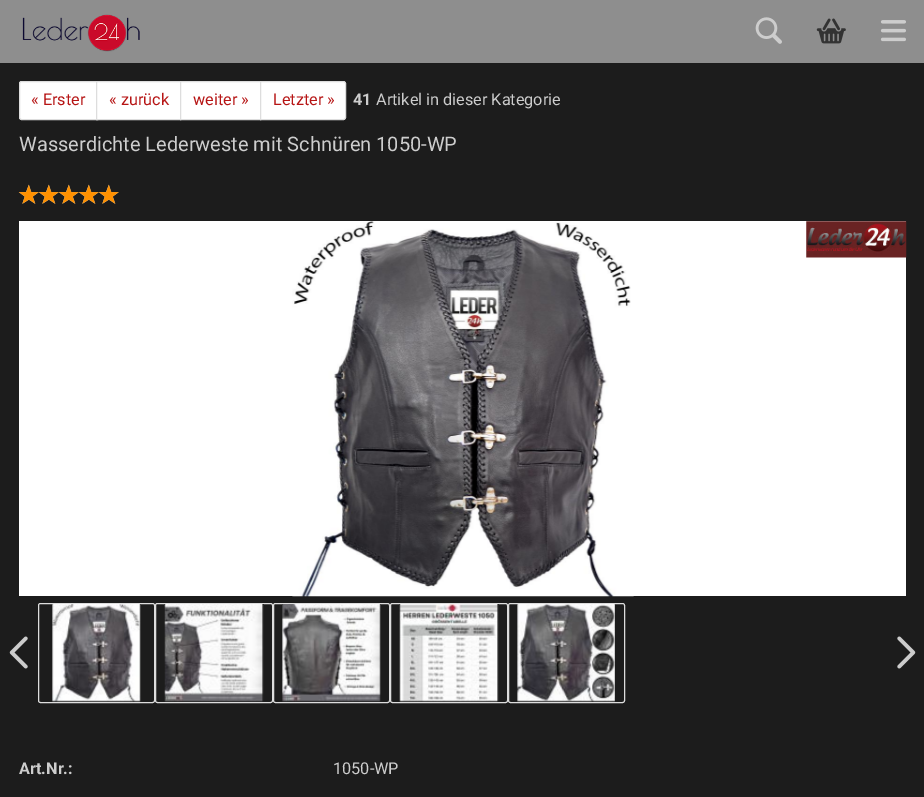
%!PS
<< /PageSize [924 797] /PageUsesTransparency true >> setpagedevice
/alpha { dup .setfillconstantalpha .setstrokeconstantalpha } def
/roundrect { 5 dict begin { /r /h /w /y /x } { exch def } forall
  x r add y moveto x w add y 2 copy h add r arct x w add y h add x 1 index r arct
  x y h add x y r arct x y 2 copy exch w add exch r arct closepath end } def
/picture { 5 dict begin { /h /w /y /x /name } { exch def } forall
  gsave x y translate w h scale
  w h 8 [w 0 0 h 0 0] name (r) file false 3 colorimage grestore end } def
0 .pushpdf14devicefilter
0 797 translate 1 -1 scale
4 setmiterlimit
0.11 setgray
0 0 924 797 rectfill
0.5 alpha
1 setgray
0 0 924 63 rectfill
1 alpha
(img1.rgb) 22 14 118 38 picture
(img2.rgb) 755 17 27 27 picture
(img3.rgb) 816 18 30 26 picture
(img4.rgb) 880 20 26 22 picture
newpath 21.5 81.5 moveto 97.5 81.5 lineto 97.5 119.5 lineto 21.5 119.5 lineto 20.5 119.5 19.5 118.5 19.5 117.5 curveto 19.5 83.5 lineto 19.5 82.5 20.5 81.5 21.5 81.5 curveto closepath gsave fill grestore
0.867 setgray
stroke
/Roboto-Regular [16.25 0 0 -16.25 0 0] selectfont
0.714 0.078 0.078 setrgbcolor
31 105 moveto (« Erster) show
1 setgray
newpath 96.5 81.5 moveto 180.5 81.5 lineto 180.5 119.5 lineto 96.5 119.5 lineto closepath gsave fill grestore
0.867 setgray
stroke
0.714 0.078 0.078 setrgbcolor
109 105 moveto (« zurück) show
1 setgray
newpath 180.5 81.5 moveto 260.5 81.5 lineto 260.5 119.5 lineto 180.5 119.5 lineto closepath gsave fill grestore
0.867 setgray
stroke
0.714 0.078 0.078 setrgbcolor
193 105 moveto (weiter ») show
1 setgray
newpath 260.5 81.5 moveto 343.5 81.5 lineto 344.5 81.5 345.5 82.5 345.5 83.5 curveto 345.5 117.5 lineto 345.5 118.5 344.5 119.5 343.5 119.5 curveto 260.5 119.5 lineto closepath gsave fill grestore
0.867 setgray
stroke
0.714 0.078 0.078 setrgbcolor
273 105 moveto (Letzter ») show
/Roboto-Bold [16.25 0 0 -16.25 0 0] selectfont
0.804 setgray
353 105 moveto (41) show
/Roboto-Regular [16.25 0 0 -16.25 0 0] selectfont
376 105 moveto (Artikel in dieser Kategorie) show
/Roboto-Regular [20 0 0 -20 0 0] selectfont
19 151 moveto (Wasserdichte Lederweste mit Schnüren 1050-WP) show
(img5.rgb) 18 184 21 20 picture
(img9.rgb) 38 184 21 20 picture
(img6.rgb) 19 184 20 20 picture
(img9.rgb) 58 184 21 20 picture
(img7.rgb) 38 184 21 20 picture
(img9.rgb) 78 184 21 20 picture
(img7.rgb) 58 184 21 20 picture
(img9.rgb) 98 184 21 20 picture
(img7.rgb) 78 184 21 20 picture
(img8.rgb) 98 184 21 20 picture
1 setgray
19 221 887 375 rectfill
(img10.rgb) 292 221 342 376 picture
(img11.rgb) 806 221 101 37 picture
(img12.rgb) 9 636 19 33 picture
0.867 setgray
38.5 603.5 116 99 2 roundrect stroke
(img13.rgb) 52 604 89 98 picture
155.5 603.5 117 99 2 roundrect stroke
(img14.rgb) 164 604 100 98 picture
273.5 603.5 116 99 2 roundrect stroke
(img15.rgb) 282 604 99 98 picture
390.5 603.5 117 99 2 roundrect stroke
(img16.rgb) 399 604 100 98 picture
508.5 603.5 116 99 2 roundrect stroke
(img17.rgb) 517 604 98 98 picture
(img18.rgb) 897 636 19 33 picture
/Roboto-Bold [16.25 0 0 -16.25 0 0] selectfont
0.804 setgray
19 774 moveto (Art.Nr.:) show
/Roboto-Regular [16.25 0 0 -16.25 0 0] selectfont
333 774 moveto (1050-WP) show
.poppdf14devicefilter showpage
